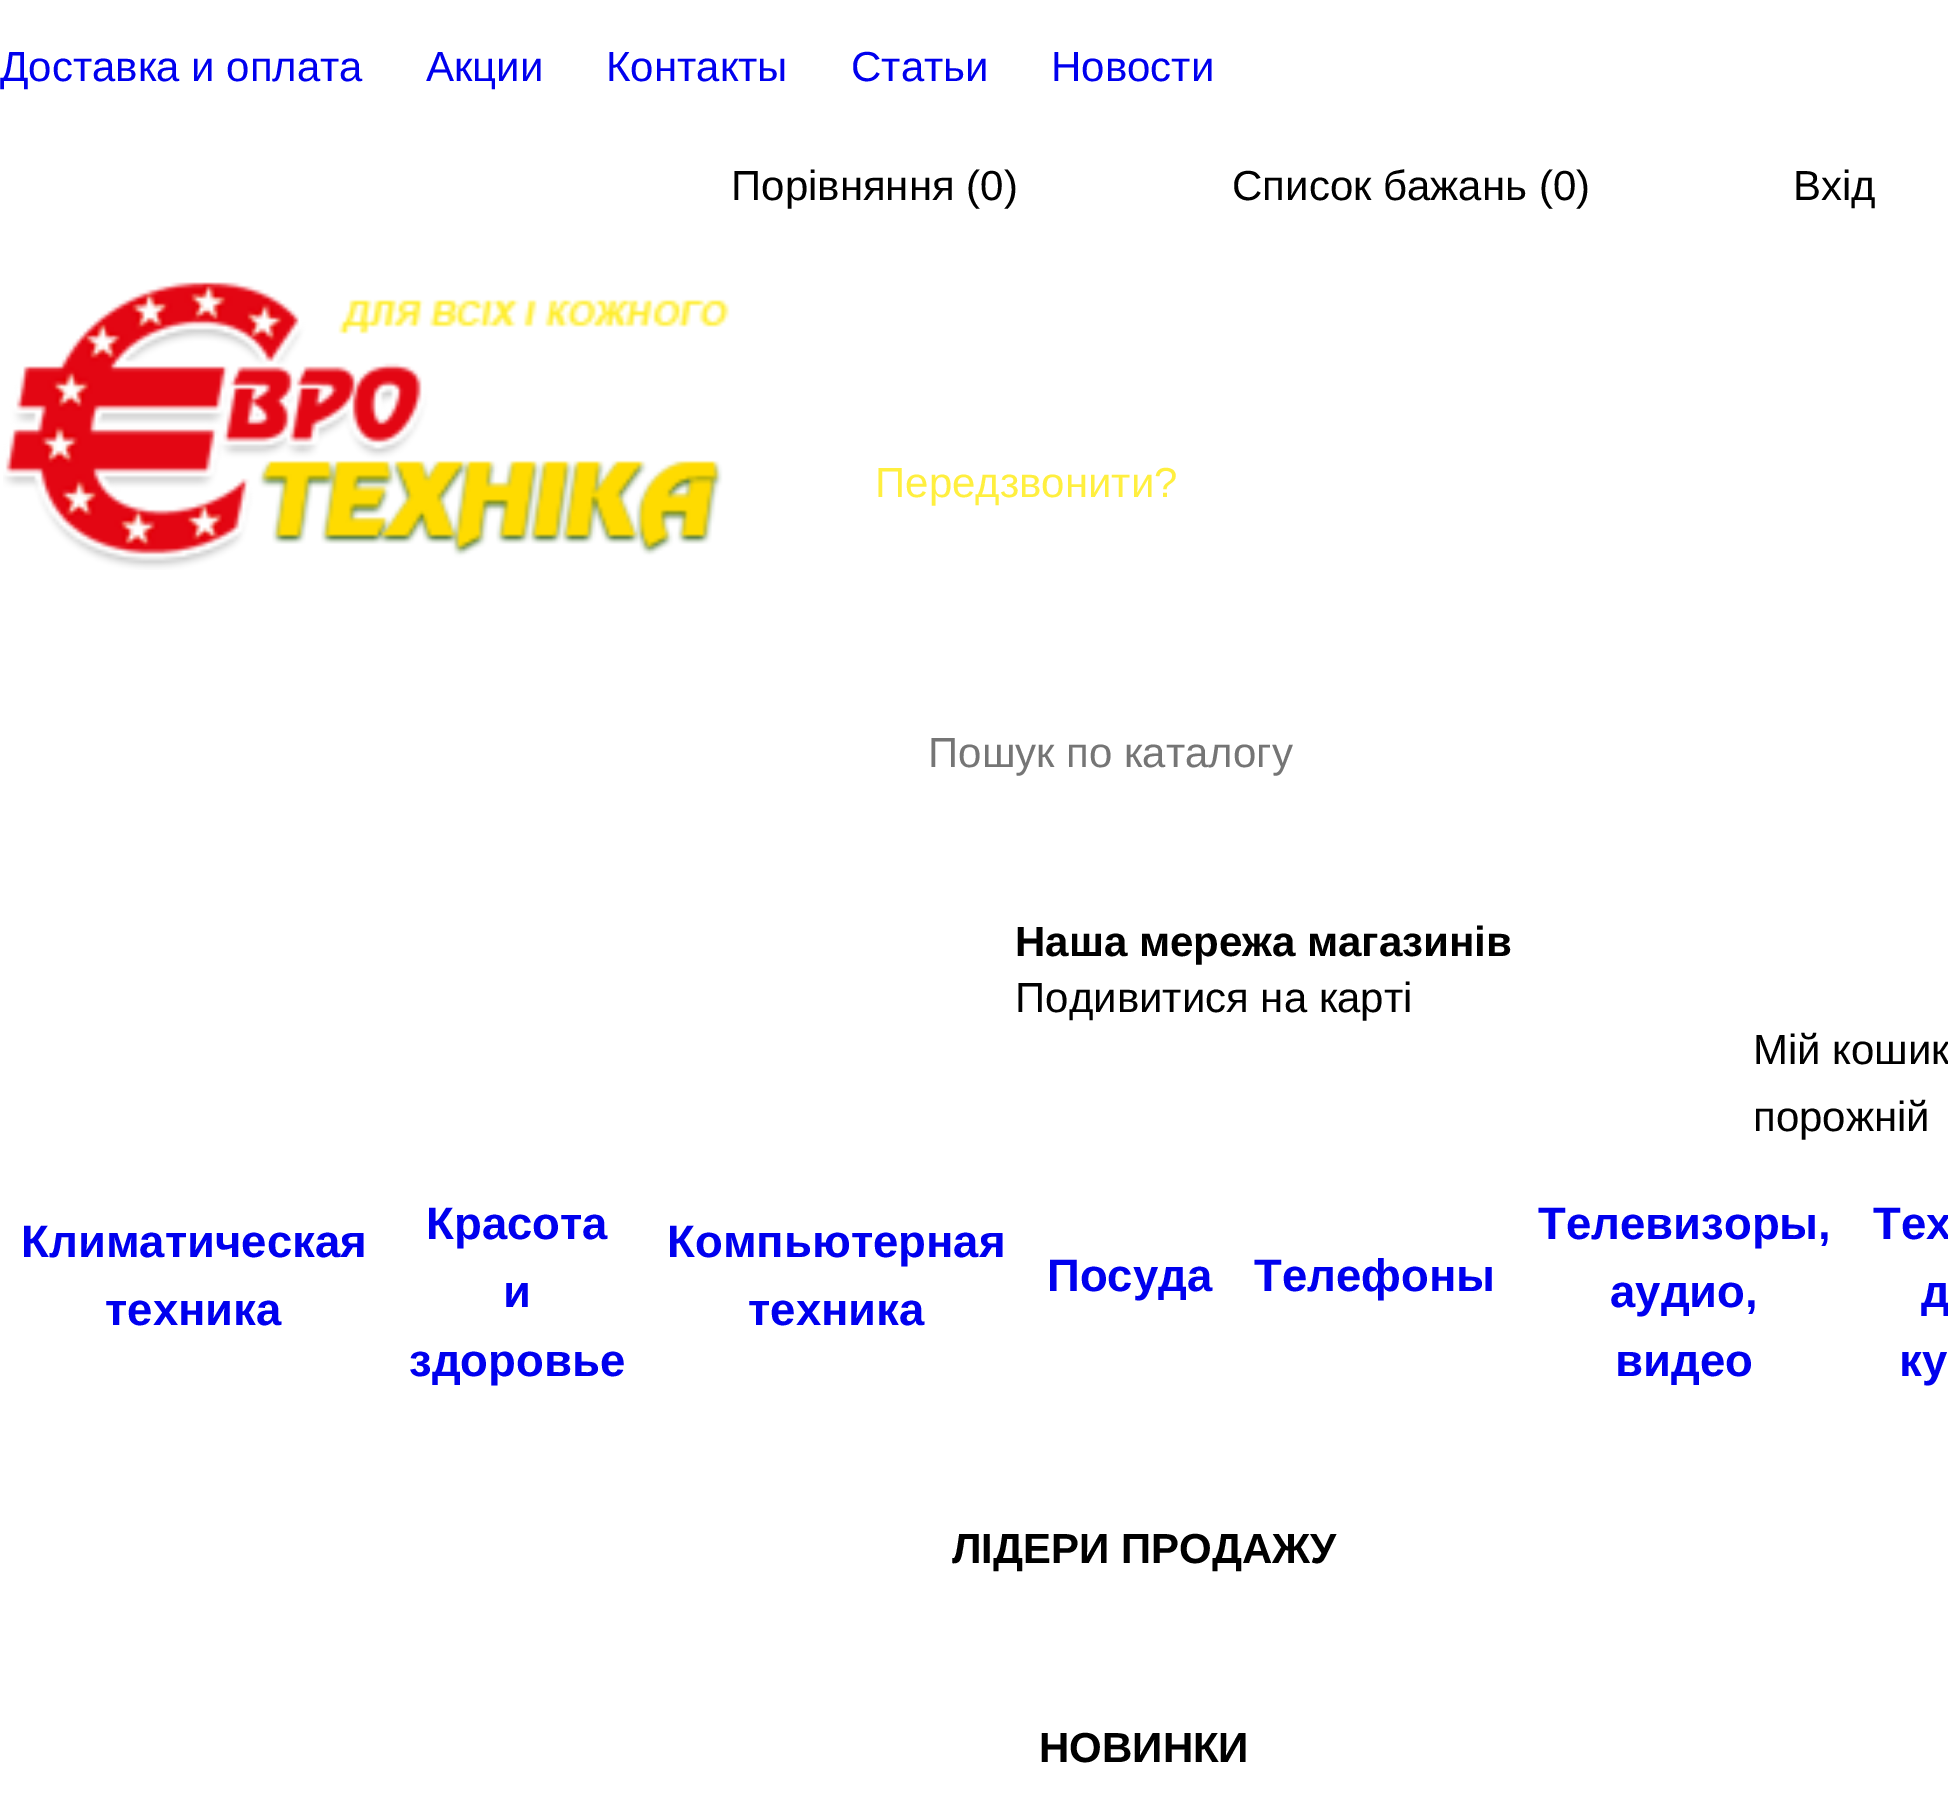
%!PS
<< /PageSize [1948 1798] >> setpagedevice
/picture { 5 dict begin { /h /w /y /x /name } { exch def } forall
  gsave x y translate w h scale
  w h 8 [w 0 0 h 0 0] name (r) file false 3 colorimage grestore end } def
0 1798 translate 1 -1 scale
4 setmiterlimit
1 setgray
0 0 1948 1798 rectfill
/LiberationSans-Regular [42 0 0 -42 0 0] selectfont
0 0 0.933 setrgbcolor
0 81 moveto (Доставка и оплата) show
426 81 moveto (Акции) show
606 81 moveto (Контакты) show
851 81 moveto (Cтатьи) show
1051 81 moveto (Новости) show
0 setgray
731 200 moveto (Порівняння \(0\)) show
1232 200 moveto (Список бажань \(0\)) show
1793 200 moveto (Вхід) show
(img1.rgb) 3 282 727 288 picture
1 0.937 0.247 setrgbcolor
875 497 moveto (Передзвонити?) show
0.459 setgray
928 767 moveto (Пошук по каталогу) show
/LiberationSans-Bold [42 0 0 -42 0 0] selectfont
0 setgray
1015 956 moveto (Наша мережа магазинів) show
/LiberationSans-Regular [42 0 0 -42 0 0] selectfont
1015 1012 moveto (Подивитися на карті) show
1753 1064 moveto (Мій кошик) show
1753 1131 moveto (порожній) show
/LiberationSans-Bold [45.5 0 0 -45.5 0 0] selectfont
0 0 0.933 setrgbcolor
21 1257 moveto (Климатическая) show
105 1325 moveto (техника) show
426 1239 moveto (Красота) show
503 1307 moveto (и) show
409 1376 moveto (здоровье) show
667 1257 moveto (Компьютерная) show
748 1325 moveto (техника) show
1047 1291 moveto (Посуда) show
1254 1291 moveto (Телефоны) show
1538 1239 moveto (Телевизоры,) show
1610 1307 moveto (аудио,) show
1615 1376 moveto (видео) show
1873 1239 moveto (Тех) show
1921 1307 moveto (д) show
1899 1376 moveto (ку) show
/LiberationSans-Bold [42 0 0 -42 0 0] selectfont
0 setgray
952 1563 moveto (ЛІДЕРИ ПРОДАЖУ) show
1039 1762 moveto (НОВИНКИ) show
showpage
